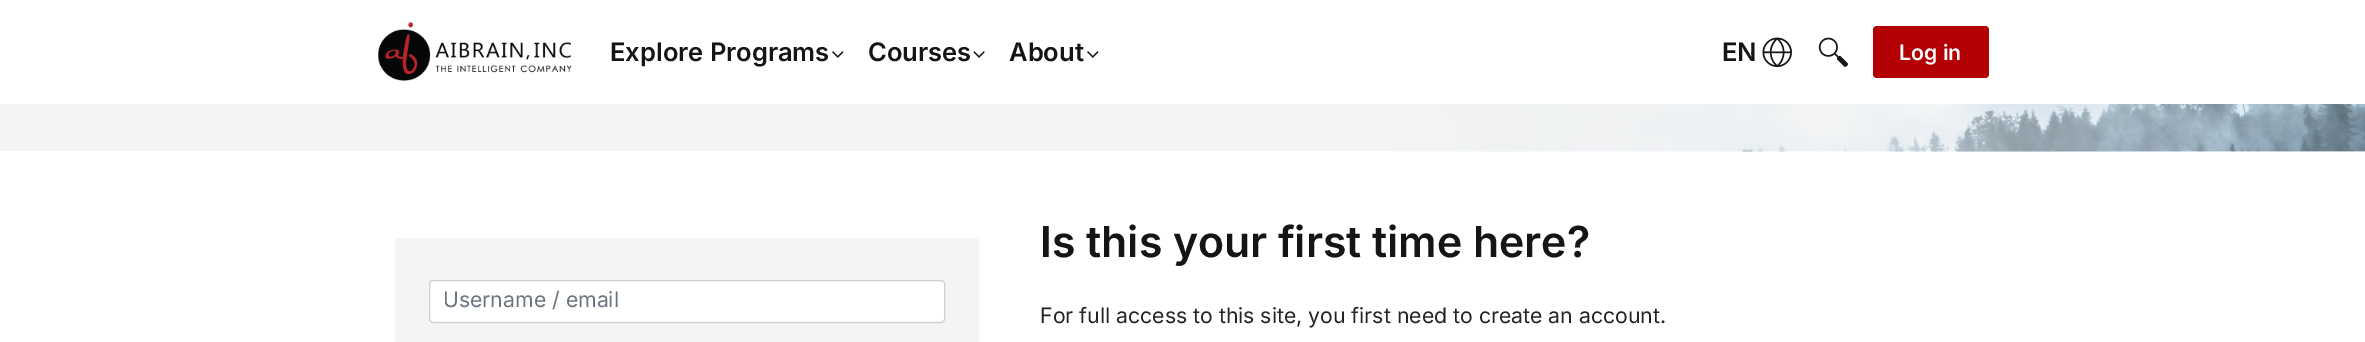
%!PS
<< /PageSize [2365 342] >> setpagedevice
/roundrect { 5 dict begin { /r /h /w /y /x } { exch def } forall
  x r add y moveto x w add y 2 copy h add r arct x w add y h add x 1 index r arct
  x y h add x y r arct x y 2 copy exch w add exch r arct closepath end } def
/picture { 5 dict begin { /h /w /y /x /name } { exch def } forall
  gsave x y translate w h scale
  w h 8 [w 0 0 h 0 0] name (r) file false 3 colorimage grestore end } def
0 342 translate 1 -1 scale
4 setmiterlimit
1 setgray
0 0 2365 342 rectfill
(img1.rgb) 377 22 195 59 picture
/Inter-SemiBold [25.5 0 0 -25.5 0 0] selectfont
0.082 setgray
610 61 moveto (Explore Programs) show
(img2.rgb) 832 51 12 7 picture
868 61 moveto (Courses) show
(img3.rgb) 973 51 12 7 picture
1009 61 moveto (About) show
(img2.rgb) 1087 51 12 7 picture
1722 61 moveto (EN) show
(img4.rgb) 1762 37 30 31 picture
(img5.rgb) 1818 37 30 30 picture
0.698 0 0.016 setrgbcolor
1873 26 116 52 4 roundrect fill
/Inter-SemiBold [21.25 0 0 -21.25 0 0] selectfont
1 setgray
1899 60 moveto (Log in) show
0.953 0.957 0.953 setrgbcolor
0 104 1390 47 rectfill
(img6.rgb) 1390 104 975 48 picture
395 238 584 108 4 roundrect fill
1 setgray
430 281 514 40 3 roundrect fill
0.808 0.812 0.808 setrgbcolor
429.5 280.5 515 42 3.5 roundrect stroke
/Inter-Regular [21.25 0 0 -21.25 0 0] selectfont
0.424 0.459 0.49 setrgbcolor
443 307 moveto (Username / email) show
/Inter-SemiBold [42.75 0 0 -42.75 0 0] selectfont
0.082 setgray
1040 257 moveto (Is this your first time here?) show
/Inter-Regular [21.25 0 0 -21.25 0 0] selectfont
0.137 0.141 0.145 setrgbcolor
1040 323 moveto (For full access to this site, you first need to create an account.) show
showpage
